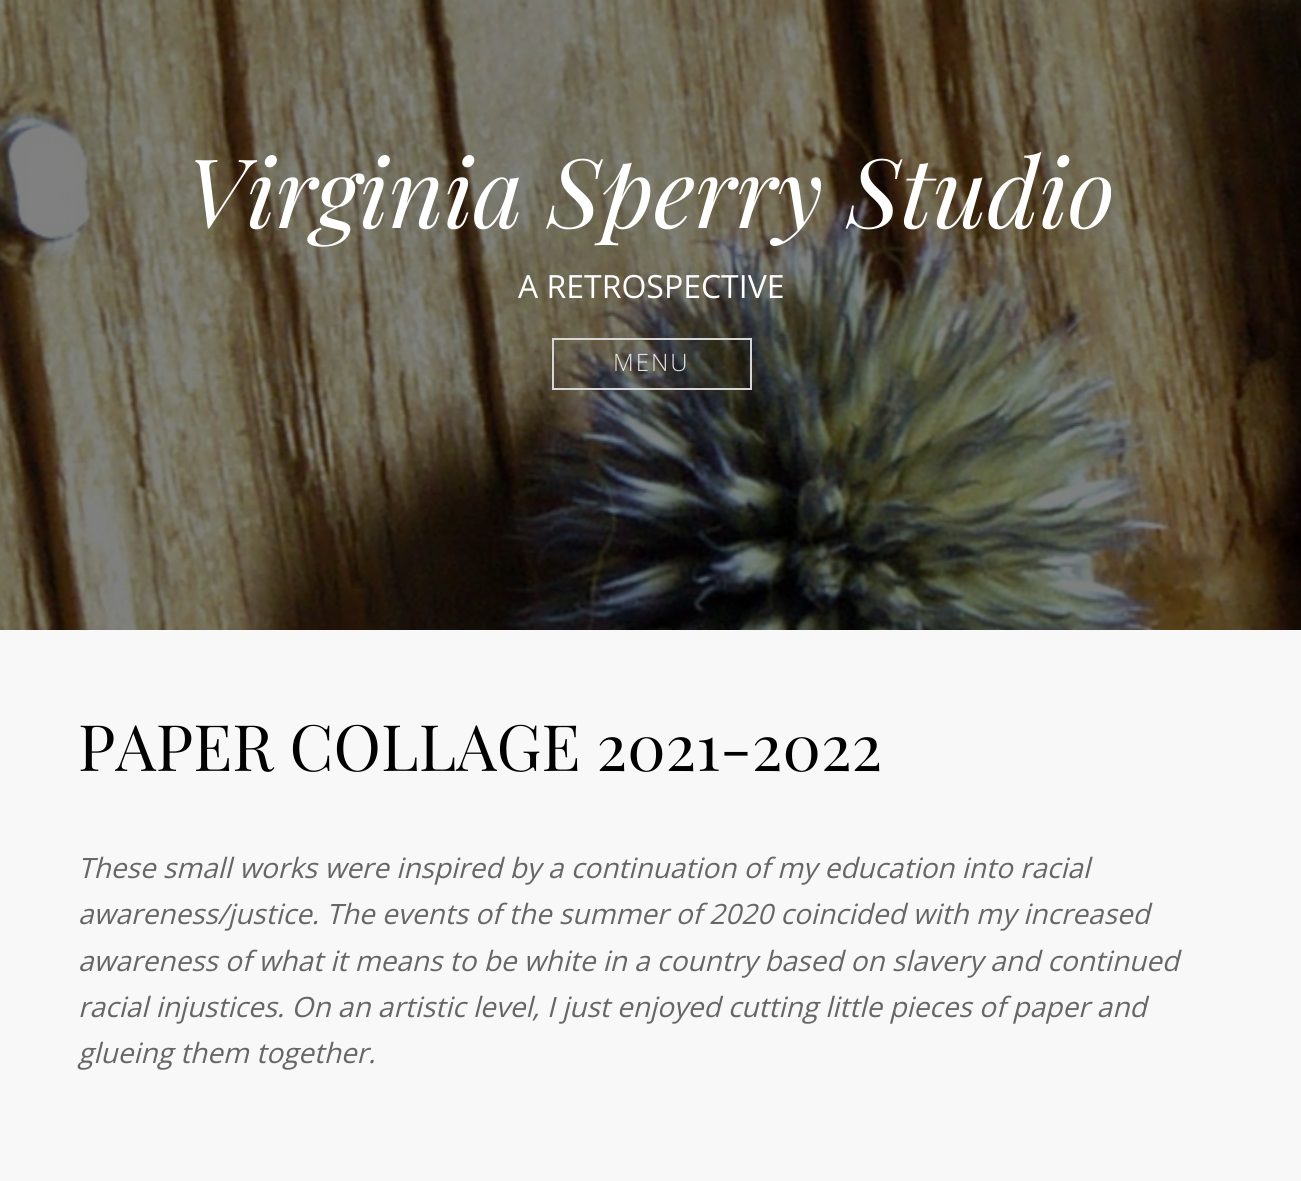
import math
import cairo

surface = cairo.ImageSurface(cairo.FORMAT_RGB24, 1301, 1181)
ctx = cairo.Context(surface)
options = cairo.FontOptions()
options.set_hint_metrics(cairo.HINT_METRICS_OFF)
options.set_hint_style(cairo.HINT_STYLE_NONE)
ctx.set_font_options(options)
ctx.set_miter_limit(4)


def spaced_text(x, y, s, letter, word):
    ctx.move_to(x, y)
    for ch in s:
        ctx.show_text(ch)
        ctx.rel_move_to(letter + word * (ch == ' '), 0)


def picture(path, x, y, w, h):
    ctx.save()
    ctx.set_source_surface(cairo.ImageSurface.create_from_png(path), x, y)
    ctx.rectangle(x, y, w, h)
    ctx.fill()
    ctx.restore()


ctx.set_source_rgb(0.969, 0.969, 0.969)
ctx.paint()
picture("img1.png", 0, 0, 1301, 630)
ctx.select_font_face("Playfair Display", cairo.FONT_SLANT_ITALIC)
ctx.set_font_size(96)
ctx.set_source_rgb(1, 1, 1)
ctx.move_to(186, 228)
ctx.show_text("Virginia Sperry Studio")
ctx.select_font_face("Open Sans")
ctx.set_font_size(32)
ctx.move_to(518, 298)
ctx.show_text("A RETROSPECTIVE")
ctx.rectangle(553, 339, 198, 50)
ctx.set_source_rgb(0.843, 0.843, 0.843)
ctx.stroke()
ctx.select_font_face("Open Sans Light")
ctx.set_font_size(24)
ctx.set_source_rgb(0.906, 0.906, 0.906)
spaced_text(613, 371, "MENU", 2, 0)
ctx.select_font_face("Playfair Display")
ctx.set_font_size(64)
ctx.set_source_rgb(0, 0, 0)
ctx.move_to(78, 771)
ctx.show_text("PAPER COLLAGE 2021-2022")
ctx.select_font_face("Open Sans", cairo.FONT_SLANT_ITALIC)
ctx.set_font_size(28)
ctx.set_source_rgb(0.4, 0.4, 0.4)
ctx.move_to(78, 878)
ctx.show_text("These small works were inspired by a continuation of my education into racial")
ctx.move_to(78, 924)
ctx.show_text("awareness/justice. The events of the summer of 2020 coincided with my increased")
ctx.move_to(78, 971)
ctx.show_text("awareness of what it means to be white in a country based on slavery and continued")
ctx.move_to(78, 1017)
ctx.show_text("racial injustices. On an artistic level, I just enjoyed cutting little pieces of paper and")
ctx.move_to(78, 1063)
ctx.show_text("glueing them together.")
surface.write_to_png("page.png")
